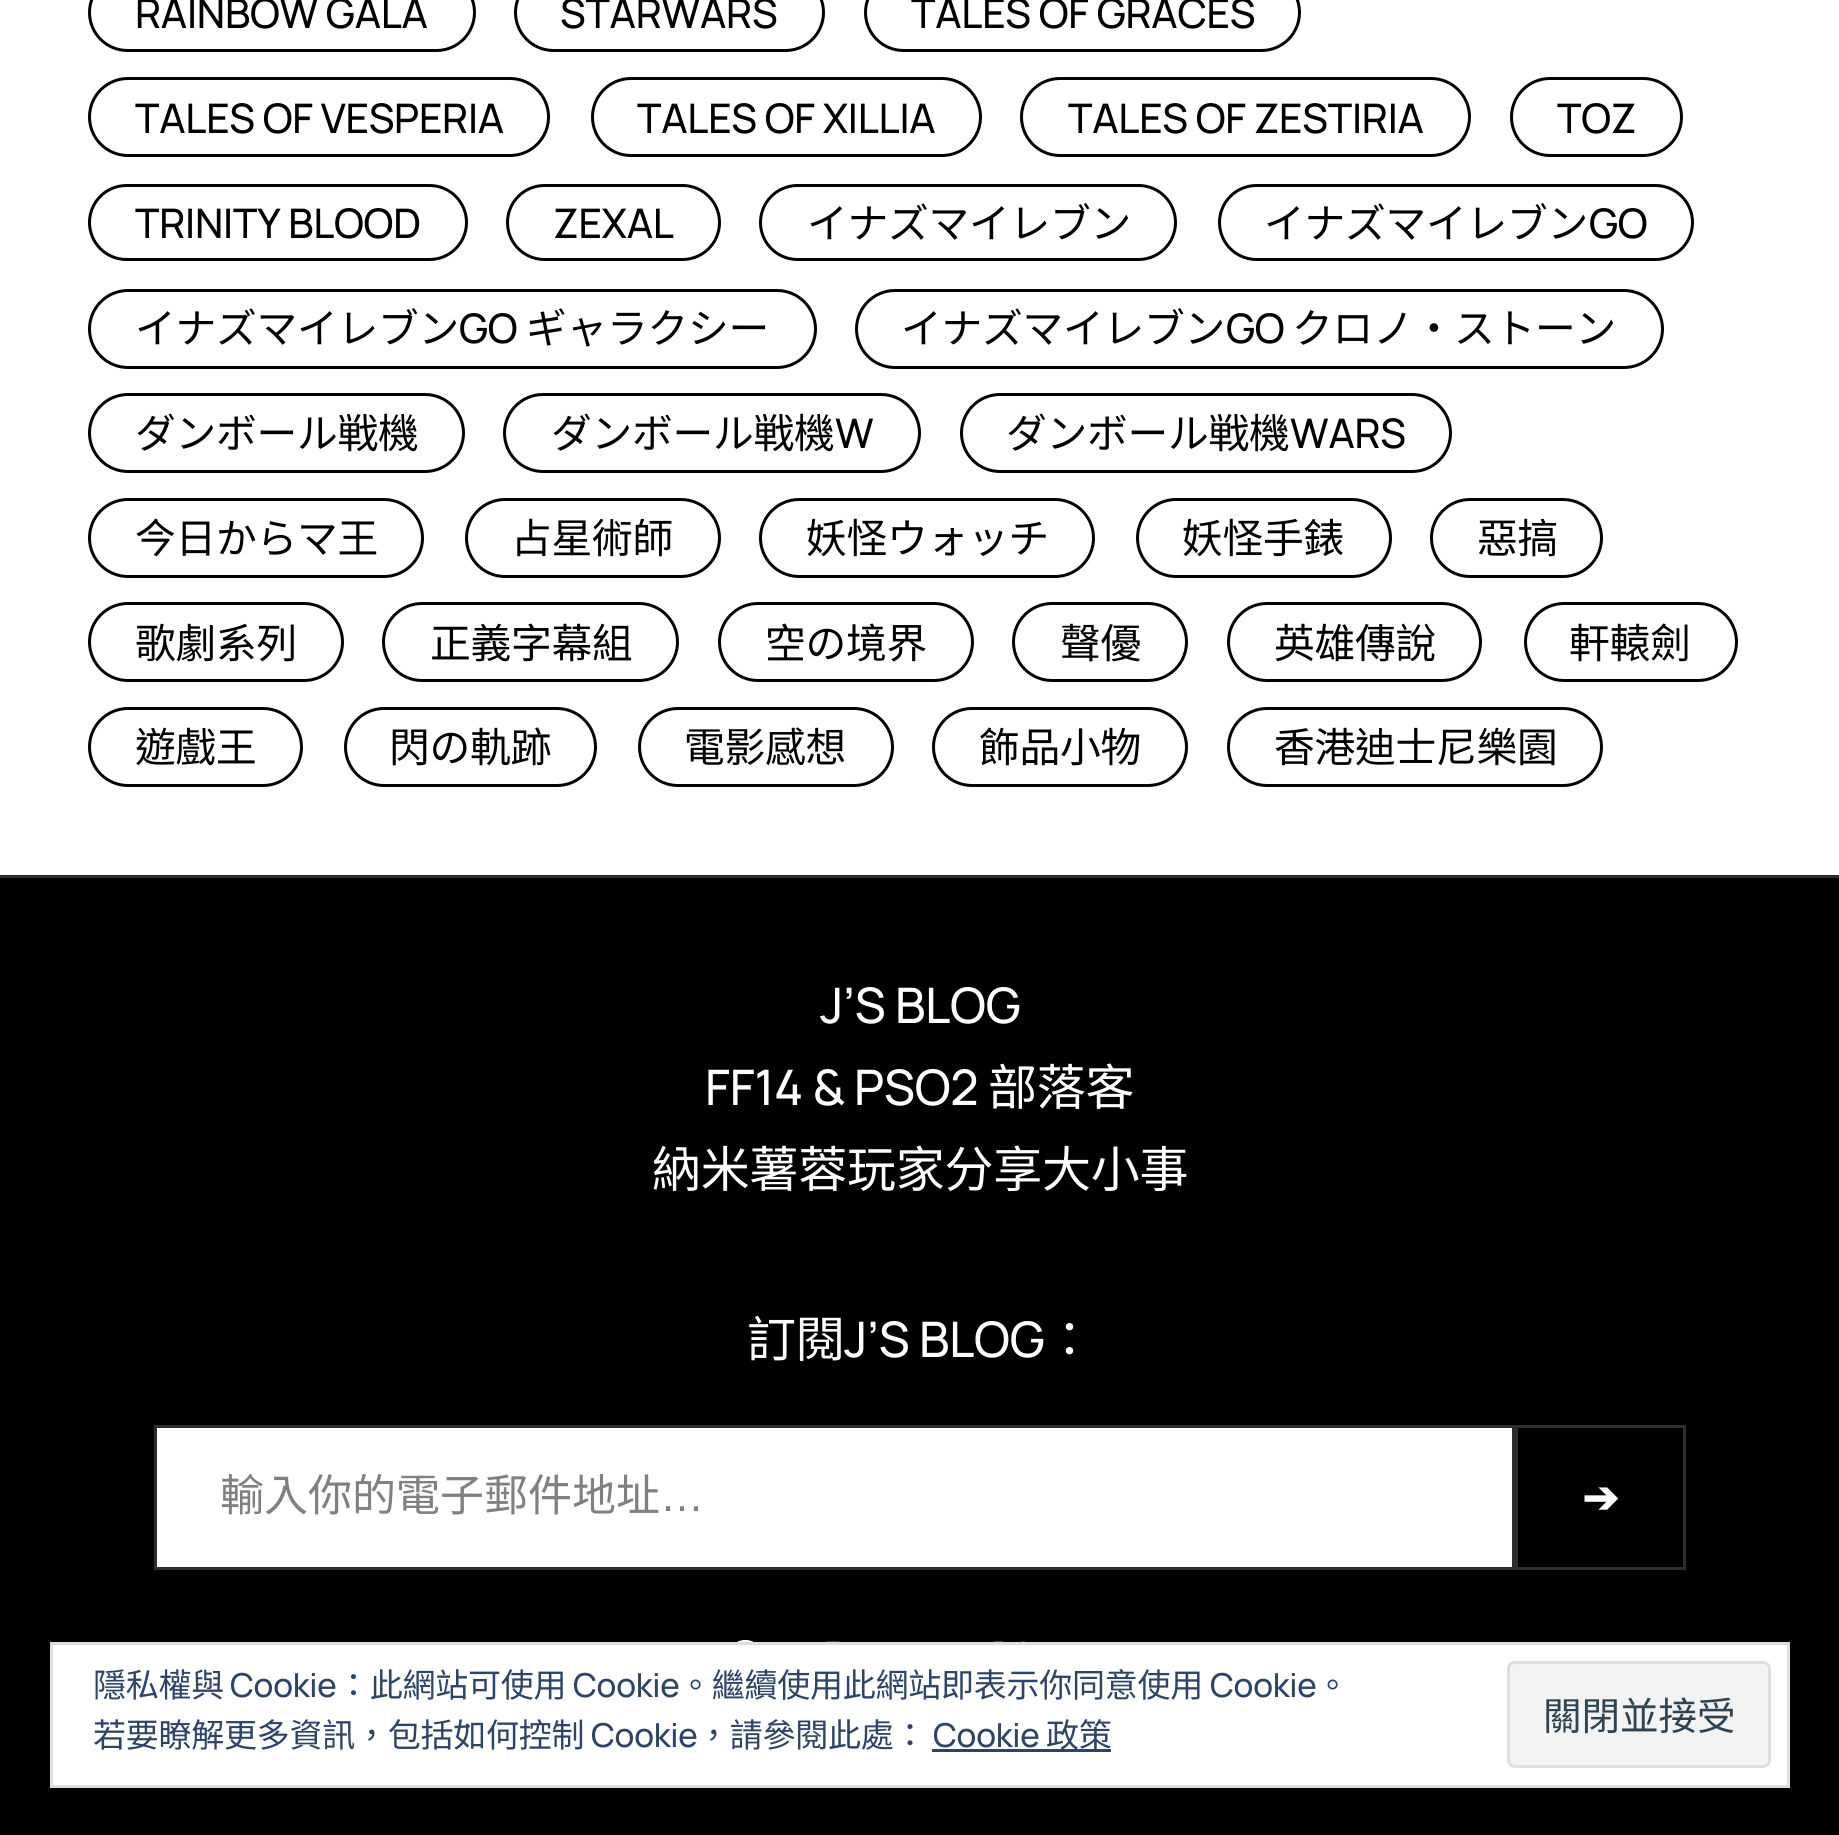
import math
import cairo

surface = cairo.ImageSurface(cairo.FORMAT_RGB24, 1839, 1835)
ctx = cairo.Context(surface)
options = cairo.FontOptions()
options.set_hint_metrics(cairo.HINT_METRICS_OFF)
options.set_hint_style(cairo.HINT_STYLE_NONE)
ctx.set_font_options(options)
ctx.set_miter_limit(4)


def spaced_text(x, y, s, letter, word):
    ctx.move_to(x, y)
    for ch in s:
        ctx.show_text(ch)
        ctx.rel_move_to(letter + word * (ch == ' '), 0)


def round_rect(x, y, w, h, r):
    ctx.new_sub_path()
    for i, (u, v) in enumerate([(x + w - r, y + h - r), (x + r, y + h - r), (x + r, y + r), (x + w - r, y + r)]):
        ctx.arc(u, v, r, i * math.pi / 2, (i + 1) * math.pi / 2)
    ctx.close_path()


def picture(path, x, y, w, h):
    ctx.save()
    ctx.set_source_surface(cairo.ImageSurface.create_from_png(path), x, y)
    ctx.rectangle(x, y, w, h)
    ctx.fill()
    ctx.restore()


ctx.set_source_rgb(1, 1, 1)
ctx.paint()
round_rect(89.5, -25.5, 385, 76, 38)
ctx.set_source_rgb(0, 0, 0)
ctx.set_line_width(3)
ctx.stroke()
ctx.select_font_face("Manrope Medium")
ctx.set_font_size(40.75)
spaced_text(135, 28, "RAINBOW GALA", -0.25, 0)
round_rect(515.5, -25.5, 308, 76, 38)
ctx.stroke()
spaced_text(560, 28, "STARWARS", -0.25, 0)
round_rect(865.5, -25.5, 434, 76, 38)
ctx.stroke()
spaced_text(911, 28, "TALES OF GRACES", -0.25, 0)
round_rect(89.5, 78.5, 459, 77, 38.5)
ctx.stroke()
spaced_text(135, 133, "TALES OF VESPERIA", -0.25, 0)
round_rect(592.5, 78.5, 388, 77, 38.5)
ctx.stroke()
spaced_text(637, 133, "TALES OF XILLIA", -0.25, 0)
round_rect(1021.5, 78.5, 448, 77, 38.5)
ctx.stroke()
spaced_text(1068, 133, "TALES OF ZESTIRIA", -0.25, 0)
round_rect(1511.5, 78.5, 170, 77, 38.5)
ctx.stroke()
spaced_text(1557, 133, "TOZ", -0.25, 0)
round_rect(89.5, 185.5, 377, 74, 37)
ctx.stroke()
spaced_text(135, 238, "TRINITY BLOOD", -0.25, 0)
round_rect(507.5, 185.5, 212, 74, 37)
ctx.stroke()
spaced_text(553, 238, "ZEXAL", -0.25, 0)
round_rect(760.5, 185.5, 415, 74, 37)
ctx.stroke()
ctx.select_font_face("Noto Sans CJK HK")
spaced_text(807, 238, "イナズマイレブン", -0.25, 0)
round_rect(1219.5, 185.5, 473, 74, 37)
ctx.stroke()
spaced_text(1264, 238, "イナズマイレブン", -0.25, 0)
ctx.select_font_face("Manrope Medium")
spaced_text(1589, 238, "GO", -0.25, 0)
round_rect(89.5, 290.5, 726, 77, 38.5)
ctx.stroke()
ctx.select_font_face("Noto Sans CJK HK")
spaced_text(135, 343, "イナズマイレブン", -0.25, 0)
ctx.select_font_face("Manrope Medium")
spaced_text(459, 343, "GO", -0.25, 0)
ctx.select_font_face("Noto Sans CJK HK")
spaced_text(526, 343, "ギャラクシー", -0.25, 0)
round_rect(856.5, 290.5, 806, 77, 38.5)
ctx.stroke()
spaced_text(901, 343, "イナズマイレブン", -0.25, 0)
ctx.select_font_face("Manrope Medium")
spaced_text(1226, 343, "GO", -0.25, 0)
ctx.select_font_face("Noto Sans CJK HK")
spaced_text(1292, 343, "クロノ・ストーン", -0.25, 0)
round_rect(89.5, 394.5, 374, 77, 38.5)
ctx.stroke()
spaced_text(135, 448, "ダンボール戦機", -0.25, 0)
round_rect(504.5, 394.5, 415, 77, 38.5)
ctx.stroke()
spaced_text(551, 448, "ダンボール戦機", -0.25, 0)
ctx.select_font_face("Manrope Medium")
spaced_text(835, 448, "W", -0.25, 0)
round_rect(961.5, 394.5, 489, 77, 38.5)
ctx.stroke()
ctx.select_font_face("Noto Sans CJK HK")
spaced_text(1006, 448, "ダンボール戦機", -0.25, 0)
ctx.select_font_face("Manrope Medium")
spaced_text(1290, 448, "WARS", -0.25, 0)
round_rect(89.5, 499.5, 333, 77, 38.5)
ctx.stroke()
ctx.select_font_face("Noto Sans CJK HK")
spaced_text(135, 553, "今日からマ王", -0.25, 0)
round_rect(466.5, 499.5, 253, 77, 38.5)
ctx.stroke()
spaced_text(511, 553, "占星術師", -0.25, 0)
round_rect(760.5, 499.5, 333, 77, 38.5)
ctx.stroke()
spaced_text(806, 553, "妖怪ウォッチ", -0.25, 0)
round_rect(1137.5, 499.5, 253, 77, 38.5)
ctx.stroke()
spaced_text(1182, 553, "妖怪手錶", -0.25, 0)
round_rect(1431.5, 499.5, 170, 77, 38.5)
ctx.stroke()
spaced_text(1477, 553, "惡搞", -0.25, 0)
round_rect(89.5, 603.5, 253, 77, 38.5)
ctx.stroke()
spaced_text(135, 658, "歌劇系列", -0.25, 0)
round_rect(383.5, 603.5, 294, 77, 38.5)
ctx.stroke()
spaced_text(430, 658, "正義字幕組", -0.25, 0)
round_rect(719.5, 603.5, 253, 77, 38.5)
ctx.stroke()
spaced_text(765, 658, "空の境界", -0.25, 0)
round_rect(1013.5, 603.5, 173, 77, 38.5)
ctx.stroke()
spaced_text(1060, 658, "聲優", -0.25, 0)
round_rect(1228.5, 603.5, 252, 77, 38.5)
ctx.stroke()
spaced_text(1274, 658, "英雄傳說", -0.25, 0)
round_rect(1525.5, 603.5, 211, 77, 38.5)
ctx.stroke()
spaced_text(1569, 658, "軒轅劍", -0.25, 0)
round_rect(89.5, 708.5, 212, 77, 38.5)
ctx.stroke()
spaced_text(135, 762, "遊戲王", -0.25, 0)
round_rect(345.5, 708.5, 250, 77, 38.5)
ctx.stroke()
spaced_text(389, 762, "閃の軌跡", -0.25, 0)
round_rect(639.5, 708.5, 253, 77, 38.5)
ctx.stroke()
spaced_text(684, 762, "電影感想", -0.25, 0)
round_rect(933.5, 708.5, 253, 77, 38.5)
ctx.stroke()
spaced_text(979, 762, "飾品小物", -0.25, 0)
round_rect(1228.5, 708.5, 373, 77, 38.5)
ctx.stroke()
spaced_text(1274, 762, "香港迪士尼樂園", -0.25, 0)
ctx.rectangle(0, 878, 1839, 957)
ctx.fill()
ctx.set_source_rgb(0.18, 0.18, 0.18)
ctx.rectangle(0, 875, 1839, 3)
ctx.fill()
ctx.select_font_face("Manrope Medium")
ctx.set_font_size(49)
ctx.set_source_rgb(1, 1, 1)
spaced_text(820, 1023, "J’S BLOG", -0.25, 0)
spaced_text(705, 1105, "FF14 & PSO2", -0.25, 0)
ctx.select_font_face("Noto Sans CJK HK")
spaced_text(988, 1105, "部落客", -0.25, 0)
spaced_text(652, 1187, "納米薯蓉玩家分享大小事", -0.25, 0)
spaced_text(747, 1357, "訂閱", -0.25, 0)
ctx.select_font_face("Manrope Medium")
spaced_text(844, 1357, "J’S BLOG", -0.25, 0)
ctx.select_font_face("Noto Sans CJK HK")
spaced_text(1045, 1357, "：", -0.25, 0)
ctx.rectangle(155.5, 1426.5, 1358, 142)
ctx.fill_preserve()
ctx.set_source_rgb(0.18, 0.18, 0.18)
ctx.stroke()
ctx.set_font_size(44)
ctx.set_source_rgb(0.502, 0.502, 0.502)
ctx.move_to(220, 1511)
ctx.show_text("輸入你的電子郵件地址")
ctx.select_font_face("Liberation Sans")
ctx.move_to(660, 1511)
ctx.show_text("…")
ctx.rectangle(1516.5, 1426.5, 168, 142)
ctx.set_source_rgb(0.18, 0.18, 0.18)
ctx.stroke()
ctx.select_font_face("DejaVu Sans", cairo.FONT_SLANT_NORMAL, cairo.FONT_WEIGHT_BOLD)
ctx.set_source_rgb(1, 1, 1)
ctx.move_to(1582, 1513)
ctx.show_text("➔")
picture("img1.png", 737, 1639, 17, 3)
picture("img2.png", 825, 1641, 16, 1)
picture("img3.png", 993, 1641, 32, 1)
ctx.rectangle(51.5, 1643.5, 1737, 143)
ctx.fill_preserve()
ctx.set_source_rgb(0.871, 0.871, 0.871)
ctx.stroke()
ctx.select_font_face("Noto Sans CJK HK")
ctx.set_font_size(33)
ctx.set_source_rgb(0.18, 0.267, 0.404)
spaced_text(93, 1697, "隱私權與", -0.25, 0)
ctx.select_font_face("Manrope Medium")
spaced_text(230, 1697, "Cookie", -0.25, 0)
ctx.select_font_face("Noto Sans CJK HK")
spaced_text(337, 1697, "：此網站可使用", -0.25, 0)
ctx.select_font_face("Manrope Medium")
spaced_text(573, 1697, "Cookie", -0.25, 0)
ctx.select_font_face("Noto Sans CJK HK")
spaced_text(679, 1697, "。繼續使用此網站即表示你同意使用", -0.25, 0)
ctx.select_font_face("Manrope Medium")
spaced_text(1210, 1697, "Cookie", -0.25, 0)
ctx.select_font_face("Noto Sans CJK HK")
spaced_text(1316, 1697, "。", -0.25, 0)
spaced_text(93, 1747, "若要瞭解更多資訊，包括如何控制", -0.25, 0)
ctx.select_font_face("Manrope Medium")
spaced_text(591, 1747, "Cookie", -0.25, 0)
ctx.select_font_face("Noto Sans CJK HK")
spaced_text(697, 1747, "，請參閱此處：", -0.25, 0)
ctx.select_font_face("Manrope Medium")
spaced_text(933, 1747, "Cookie", -0.25, 0)
ctx.rectangle(932, 1749, 179, 3)
ctx.fill()
ctx.select_font_face("Noto Sans CJK HK")
spaced_text(1046, 1747, "政策", -0.25, 0)
ctx.set_source_rgb(0.953, 0.953, 0.953)
round_rect(1508.5, 1662.5, 261, 104, 6.5)
ctx.fill_preserve()
ctx.set_source_rgb(0.871, 0.871, 0.871)
ctx.stroke()
ctx.set_font_size(38.5)
ctx.set_source_rgb(0.18, 0.267, 0.325)
ctx.move_to(1543, 1730)
ctx.show_text("關閉並接受")
surface.write_to_png("page.png")
